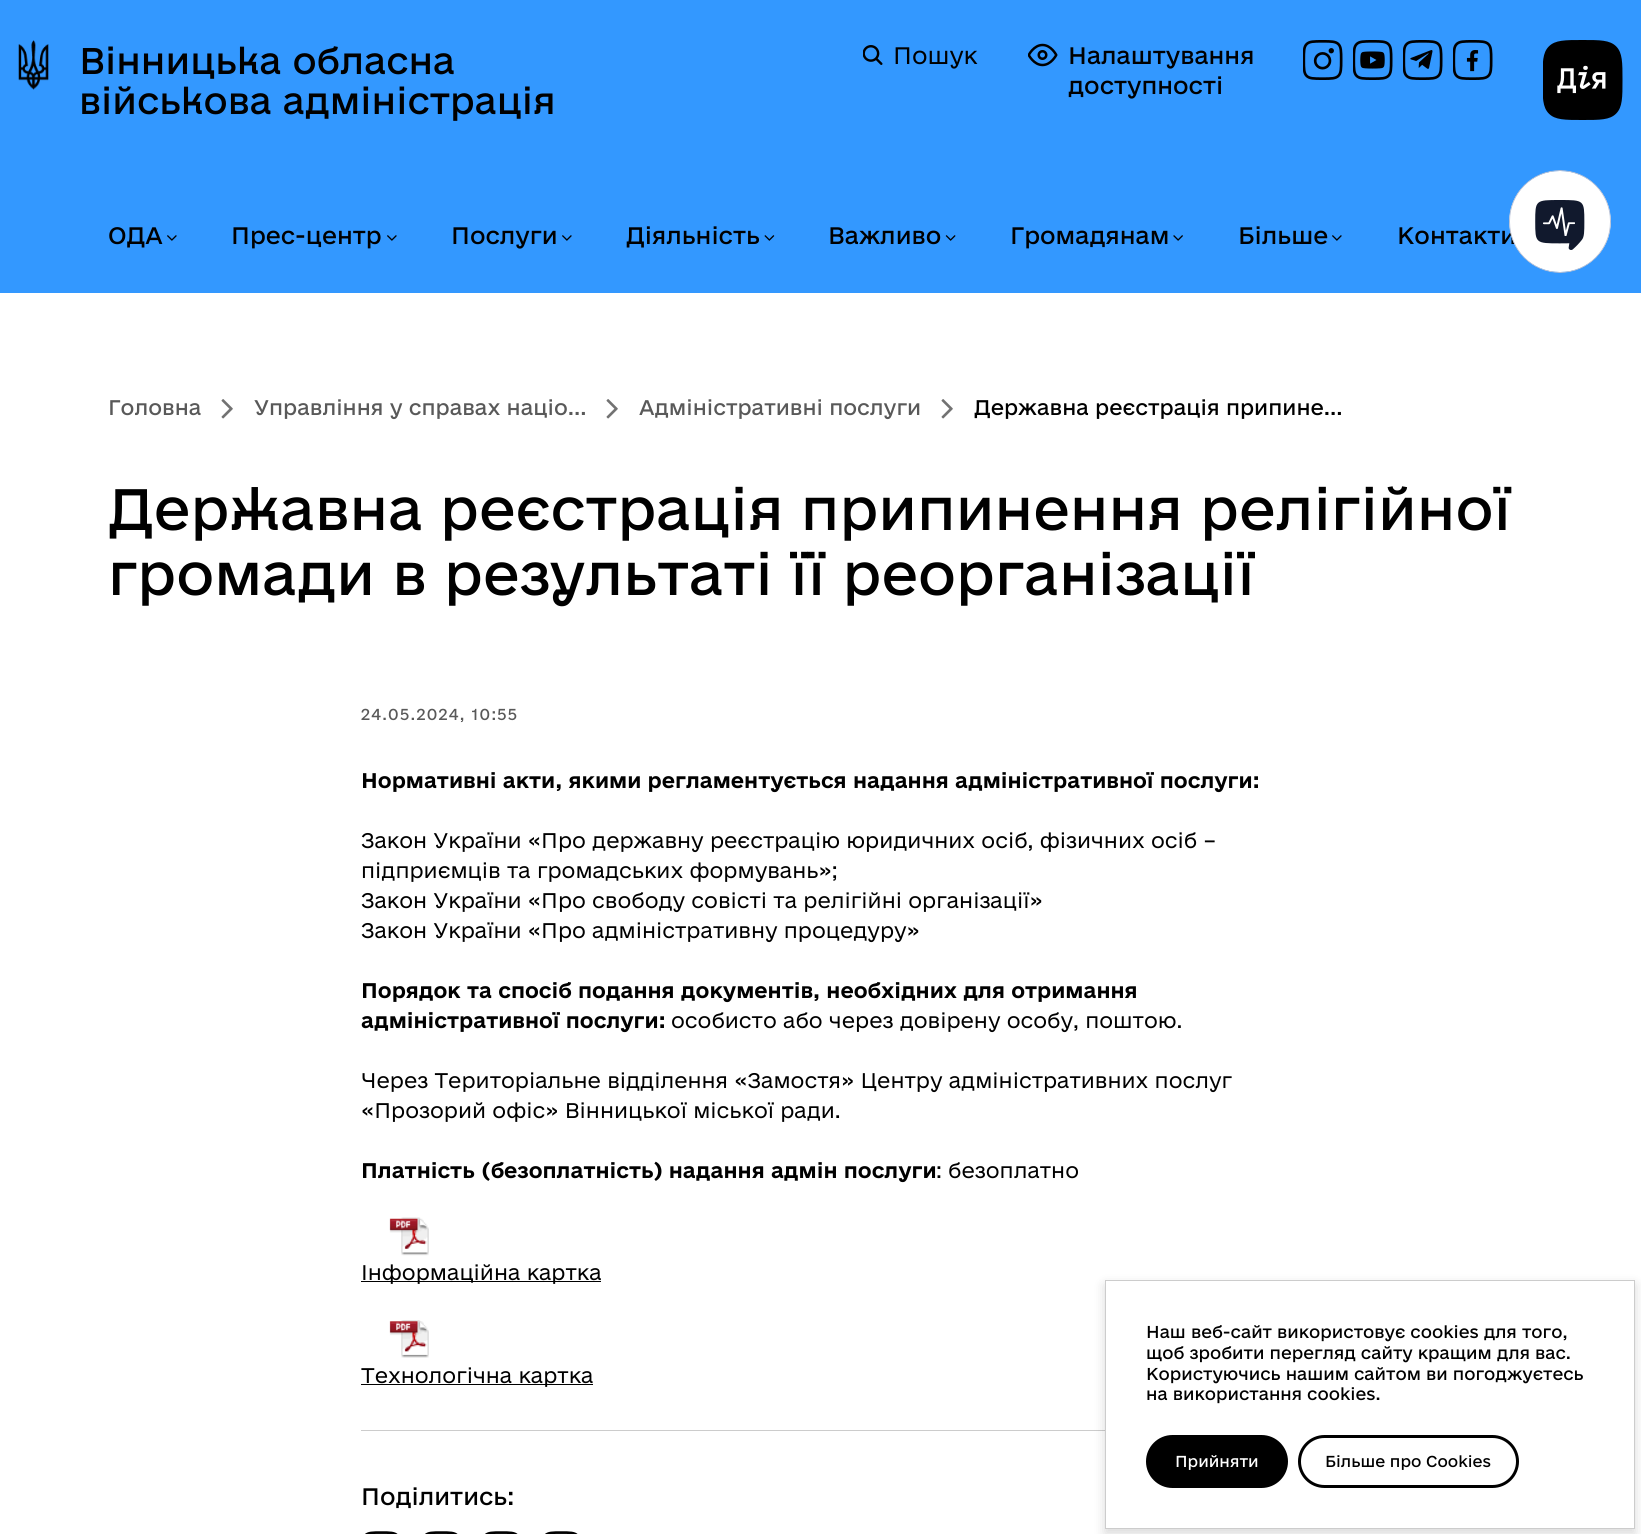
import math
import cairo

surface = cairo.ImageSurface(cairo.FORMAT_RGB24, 1641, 1534)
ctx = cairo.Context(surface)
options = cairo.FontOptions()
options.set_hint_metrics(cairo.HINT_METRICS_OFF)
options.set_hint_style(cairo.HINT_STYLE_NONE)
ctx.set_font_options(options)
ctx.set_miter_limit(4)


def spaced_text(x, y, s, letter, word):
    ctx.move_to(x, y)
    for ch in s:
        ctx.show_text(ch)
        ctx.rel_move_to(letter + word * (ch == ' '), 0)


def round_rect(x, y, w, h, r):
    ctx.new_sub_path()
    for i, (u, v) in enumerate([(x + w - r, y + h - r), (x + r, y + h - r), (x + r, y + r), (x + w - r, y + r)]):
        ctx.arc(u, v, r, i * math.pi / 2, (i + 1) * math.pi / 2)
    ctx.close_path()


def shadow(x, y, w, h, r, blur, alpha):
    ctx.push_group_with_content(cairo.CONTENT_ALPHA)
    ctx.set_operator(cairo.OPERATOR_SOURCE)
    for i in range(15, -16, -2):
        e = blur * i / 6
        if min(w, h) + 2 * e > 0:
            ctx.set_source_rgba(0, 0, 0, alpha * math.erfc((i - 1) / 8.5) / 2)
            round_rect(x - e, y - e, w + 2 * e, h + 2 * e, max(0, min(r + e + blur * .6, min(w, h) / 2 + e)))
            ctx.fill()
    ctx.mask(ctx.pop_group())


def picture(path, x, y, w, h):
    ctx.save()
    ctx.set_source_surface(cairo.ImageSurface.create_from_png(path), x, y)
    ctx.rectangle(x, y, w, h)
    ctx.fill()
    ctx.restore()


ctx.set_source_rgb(1, 1, 1)
ctx.paint()
ctx.set_source_rgb(0.2, 0.596, 1)
ctx.rectangle(0, 0, 1641, 293)
ctx.fill()
picture("img1.png", 18, 40, 31, 50)
ctx.select_font_face("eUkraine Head")
ctx.set_font_size(35)
ctx.set_source_rgb(0, 0, 0)
ctx.move_to(79, 74)
ctx.show_text("Вінницька обласна")
ctx.move_to(79, 114)
ctx.show_text("військова адміністрація")
picture("img2.png", 863, 45, 20, 20)
ctx.select_font_face("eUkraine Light")
ctx.set_font_size(22.5)
ctx.move_to(893, 64)
ctx.show_text("Пошук")
picture("img3.png", 1028, 43, 30, 24)
ctx.select_font_face("eUkraine")
ctx.move_to(1068, 64)
ctx.show_text("Налаштування")
ctx.move_to(1068, 94)
ctx.show_text("доступності")
picture("img4.png", 1303, 40, 40, 40)
picture("img5.png", 1353, 40, 40, 40)
picture("img6.png", 1403, 40, 40, 40)
picture("img7.png", 1453, 40, 40, 40)
picture("img8.png", 1543, 40, 80, 80)
ctx.move_to(108, 244)
ctx.show_text("ОДА")
picture("img9.png", 167, 235, 10, 6)
ctx.move_to(231, 244)
ctx.show_text("Прес-центр")
picture("img9.png", 387, 235, 10, 6)
ctx.move_to(451, 244)
ctx.show_text("Послуги")
picture("img9.png", 562, 235, 10, 6)
ctx.move_to(626, 244)
ctx.show_text("Діяльність")
picture("img10.png", 764, 235, 11, 6)
ctx.move_to(828, 244)
ctx.show_text("Важливо")
picture("img11.png", 945, 235, 11, 6)
ctx.move_to(1010, 244)
ctx.show_text("Громадянам")
picture("img12.png", 1173, 235, 10, 6)
ctx.move_to(1238, 244)
ctx.show_text("Більше")
picture("img9.png", 1332, 235, 10, 6)
ctx.move_to(1397, 244)
ctx.show_text("Контакти")
ctx.set_font_size(20)
ctx.set_source_rgb(0.349, 0.349, 0.349)
ctx.move_to(108, 415)
ctx.show_text("Головна")
picture("img13.png", 221, 399, 12, 20)
ctx.move_to(254, 415)
ctx.show_text("Управління у справах націо...")
picture("img13.png", 606, 399, 12, 20)
ctx.move_to(639, 415)
ctx.show_text("Адміністративні послуги")
picture("img13.png", 941, 399, 12, 20)
ctx.set_source_rgb(0, 0, 0)
ctx.move_to(974, 415)
ctx.show_text("Державна реєстрація припине...")
ctx.select_font_face("eUkraine Head")
ctx.set_font_size(55)
ctx.move_to(108, 530)
ctx.show_text("Державна реєстрація припинення релігійної")
ctx.move_to(108, 595)
ctx.show_text("громади в результаті її реорганізації")
ctx.select_font_face("eUkraine")
ctx.set_font_size(15)
ctx.set_source_rgb(0.349, 0.349, 0.349)
spaced_text(361, 720, "24.05.2024, 10:55", 1.25, 0)
ctx.select_font_face("eUkraine", cairo.FONT_SLANT_NORMAL, cairo.FONT_WEIGHT_BOLD)
ctx.set_font_size(20)
ctx.set_source_rgb(0, 0, 0)
ctx.move_to(361, 788)
ctx.show_text("Нормативні акти, якими регламентується надання адміністративної послуги:")
ctx.select_font_face("eUkraine Light")
ctx.move_to(361, 848)
ctx.show_text("Закон України «Про державну реєстрацію юридичних осіб, фізичних осіб –")
ctx.move_to(361, 878)
ctx.show_text("підприємців та громадських формувань»;")
ctx.move_to(361, 908)
ctx.show_text("Закон України «Про свободу совісті та релігійні організації»")
ctx.move_to(361, 938)
ctx.show_text("Закон України «Про адміністративну процедуру»")
ctx.select_font_face("eUkraine", cairo.FONT_SLANT_NORMAL, cairo.FONT_WEIGHT_BOLD)
ctx.move_to(361, 998)
ctx.show_text("Порядок та спосіб подання документів, необхідних для отримання")
ctx.move_to(361, 1028)
ctx.show_text("адміністративної послуги:")
ctx.select_font_face("eUkraine Light")
ctx.move_to(671, 1028)
ctx.show_text("особисто або через довірену особу, поштою.")
ctx.move_to(361, 1088)
ctx.show_text("Через Територіальне відділення «Замостя» Центру адміністративних послуг")
ctx.move_to(361, 1118)
ctx.show_text("«Прозорий офіс» Вінницької міської ради.")
ctx.select_font_face("eUkraine", cairo.FONT_SLANT_NORMAL, cairo.FONT_WEIGHT_BOLD)
ctx.move_to(361, 1178)
ctx.show_text("Платність (безоплатність) надання адмін послуги")
ctx.select_font_face("eUkraine Light")
ctx.move_to(936, 1178)
ctx.show_text(": безоплатно")
picture("img14.png", 389, 1217, 40, 39)
ctx.rectangle(361, 1281, 240, 1)
ctx.fill()
ctx.move_to(361, 1280)
ctx.show_text("Інформаційна картка")
picture("img15.png", 389, 1320, 40, 38)
ctx.rectangle(361, 1384, 232, 1)
ctx.fill()
ctx.move_to(361, 1383)
ctx.show_text("Технологічна картка")
ctx.set_source_rgb(0.8, 0.8, 0.8)
ctx.rectangle(361, 1430, 744, 1)
ctx.fill()
ctx.select_font_face("eUkraine")
ctx.set_font_size(22.5)
ctx.set_source_rgb(0, 0, 0)
ctx.move_to(361, 1505)
ctx.show_text("Поділитись:")
picture("img16.png", 365, 1531, 33, 3)
picture("img16.png", 425, 1531, 33, 3)
picture("img16.png", 485, 1531, 33, 3)
picture("img16.png", 545, 1531, 33, 3)
picture("img17.png", 1509, 170, 102, 103)
ctx.set_source_rgb(0, 0, 0)
shadow(1105, 1285, 530, 249, 0, 6, 0.15)
ctx.set_source_rgb(1, 1, 1)
ctx.rectangle(1105.5, 1280.5, 529, 248)
ctx.fill_preserve()
ctx.set_source_rgb(0.8, 0.8, 0.8)
ctx.set_line_width(1)
ctx.stroke()
ctx.set_font_size(16.25)
ctx.set_source_rgb(0, 0, 0)
ctx.move_to(1146, 1338)
ctx.show_text("Наш веб-сайт використовує cookies для того,")
ctx.move_to(1146, 1359)
ctx.show_text("щоб зробити перегляд сайту кращим для вас.")
ctx.move_to(1146, 1380)
ctx.show_text("Користуючись нашим сайтом ви погоджуєтесь")
ctx.move_to(1146, 1400)
ctx.show_text("на використання cookies.")
round_rect(1148, 1437, 138, 49, 24.5)
ctx.fill_preserve()
ctx.set_line_width(4)
ctx.stroke()
ctx.set_font_size(15)
ctx.set_source_rgb(1, 1, 1)
ctx.move_to(1175, 1467)
ctx.show_text("Прийняти")
round_rect(1299.5, 1436.5, 218, 50, 25)
ctx.set_source_rgb(0, 0, 0)
ctx.set_line_width(3)
ctx.stroke()
ctx.move_to(1325, 1467)
ctx.show_text("Більше про Cookies")
surface.write_to_png("page.png")
